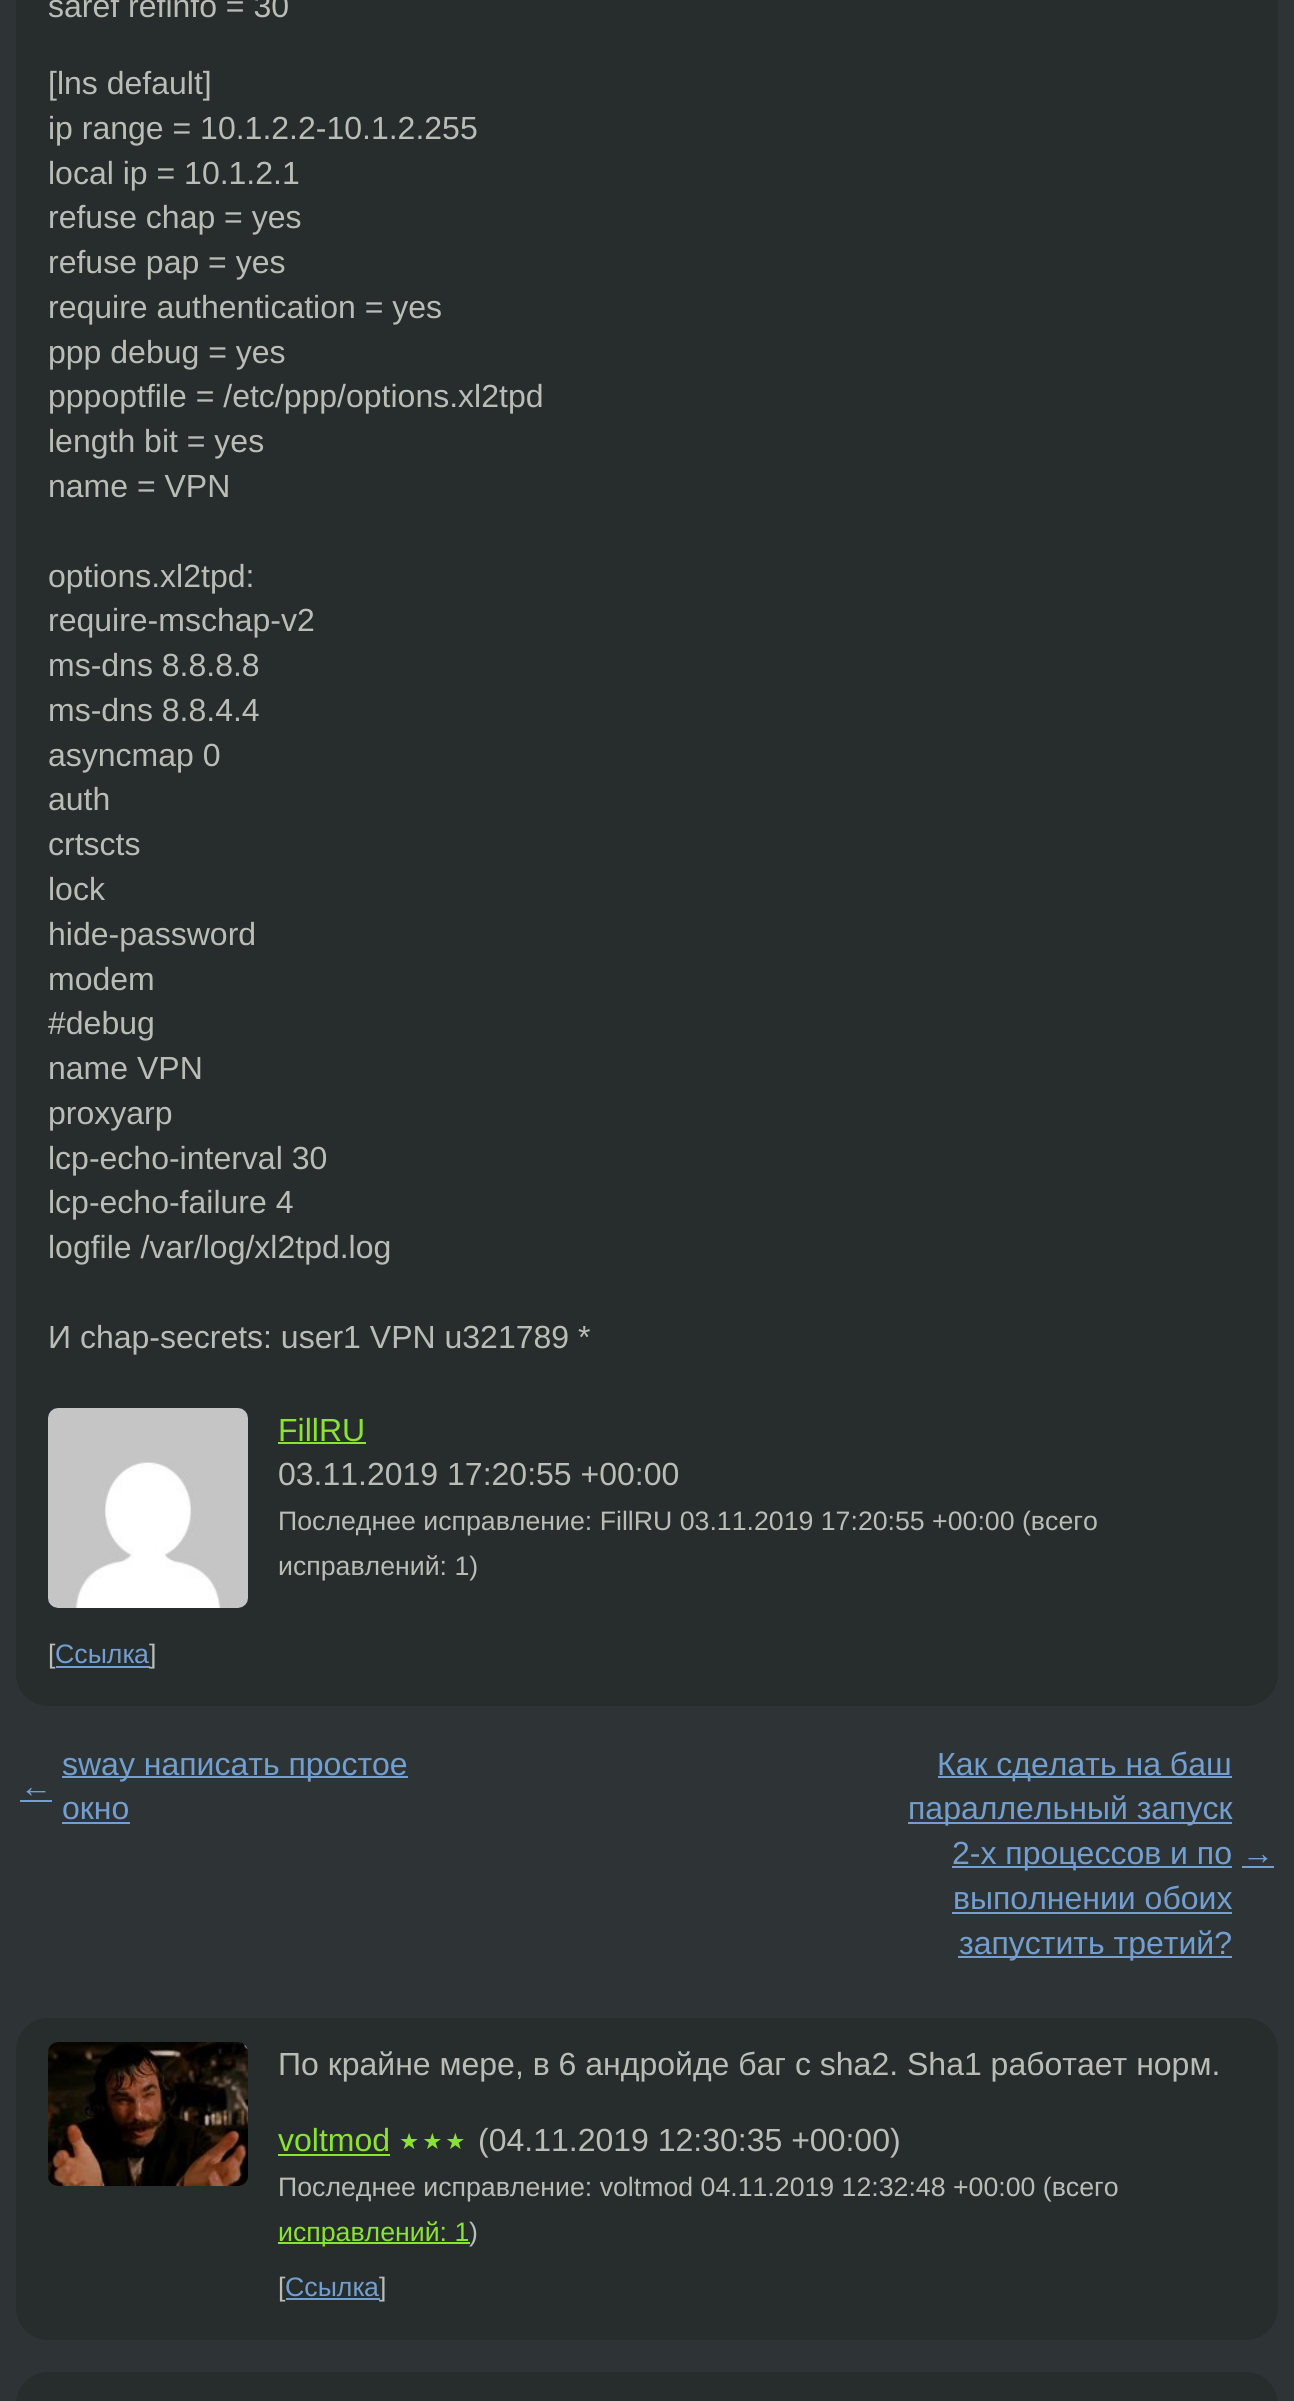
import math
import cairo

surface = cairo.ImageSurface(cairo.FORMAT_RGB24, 1294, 2401)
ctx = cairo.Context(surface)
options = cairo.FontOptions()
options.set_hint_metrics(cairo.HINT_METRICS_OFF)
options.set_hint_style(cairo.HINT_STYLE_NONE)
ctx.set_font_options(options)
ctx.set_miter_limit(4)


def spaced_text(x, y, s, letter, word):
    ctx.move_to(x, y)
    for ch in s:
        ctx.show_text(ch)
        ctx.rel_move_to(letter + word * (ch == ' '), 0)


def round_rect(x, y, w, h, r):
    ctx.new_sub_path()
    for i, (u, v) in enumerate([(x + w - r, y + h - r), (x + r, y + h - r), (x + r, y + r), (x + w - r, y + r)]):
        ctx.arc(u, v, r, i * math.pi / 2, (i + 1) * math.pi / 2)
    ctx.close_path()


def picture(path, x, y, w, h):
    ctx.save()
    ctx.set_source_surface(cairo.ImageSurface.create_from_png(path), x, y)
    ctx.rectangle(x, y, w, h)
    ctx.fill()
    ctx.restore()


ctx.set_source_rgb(0.18, 0.204, 0.212)
ctx.paint()
ctx.set_source_rgb(0.153, 0.173, 0.176)
round_rect(16, -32, 1262, 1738, 32)
ctx.fill()
ctx.select_font_face("Liberation Sans")
ctx.set_font_size(32)
ctx.set_source_rgb(0.729, 0.741, 0.714)
ctx.move_to(48, 17)
ctx.show_text("saref refinfo = 30")
ctx.move_to(48, 94)
ctx.show_text("[lns default]")
ctx.move_to(48, 139)
ctx.show_text("ip range = 10.1.2.2-10.1.2.255")
ctx.move_to(48, 184)
ctx.show_text("local ip = 10.1.2.1")
ctx.move_to(48, 228)
ctx.show_text("refuse chap = yes")
ctx.move_to(48, 273)
ctx.show_text("refuse pap = yes")
ctx.move_to(48, 318)
ctx.show_text("require authentication = yes")
ctx.move_to(48, 363)
ctx.show_text("ppp debug = yes")
ctx.move_to(48, 407)
ctx.show_text("pppoptfile = /etc/ppp/options.xl2tpd")
ctx.move_to(48, 452)
ctx.show_text("length bit = yes")
ctx.move_to(48, 497)
ctx.show_text("name = VPN")
ctx.move_to(48, 587)
ctx.show_text("options.xl2tpd:")
ctx.move_to(48, 631)
ctx.show_text("require-mschap-v2")
ctx.move_to(48, 676)
ctx.show_text("ms-dns 8.8.8.8")
ctx.move_to(48, 721)
ctx.show_text("ms-dns 8.8.4.4")
ctx.move_to(48, 766)
ctx.show_text("asyncmap 0")
ctx.move_to(48, 810)
ctx.show_text("auth")
ctx.move_to(48, 855)
ctx.show_text("crtscts")
ctx.move_to(48, 900)
ctx.show_text("lock")
ctx.move_to(48, 945)
ctx.show_text("hide-password")
ctx.move_to(48, 990)
ctx.show_text("modem")
ctx.move_to(48, 1034)
ctx.show_text("#debug")
ctx.move_to(48, 1079)
ctx.show_text("name VPN")
ctx.move_to(48, 1124)
ctx.show_text("proxyarp")
ctx.move_to(48, 1169)
ctx.show_text("lcp-echo-interval 30")
ctx.move_to(48, 1213)
ctx.show_text("lcp-echo-failure 4")
ctx.move_to(48, 1258)
ctx.show_text("logfile /var/log/xl2tpd.log")
ctx.move_to(48, 1348)
ctx.show_text("И chap-secrets: user1 VPN u321789 *")
picture("img1.png", 48, 1408, 200, 200)
ctx.set_source_rgb(0.541, 0.886, 0.204)
ctx.move_to(278, 1441)
ctx.show_text("FillRU")
ctx.rectangle(278, 1442, 88, 2)
ctx.fill()
ctx.set_source_rgb(0.729, 0.741, 0.714)
ctx.move_to(278, 1485)
ctx.show_text("03.11.2019 17:20:55 +00:00")
ctx.set_font_size(26.7)
ctx.move_to(278, 1530)
ctx.show_text("Последнее исправление: FillRU 03.11.2019 17:20:55 +00:00 (всего")
ctx.move_to(278, 1575)
ctx.show_text("исправлений: 1)")
ctx.move_to(48, 1663)
ctx.show_text("[")
ctx.set_source_rgb(0.447, 0.624, 0.812)
ctx.rectangle(56, 1666, 94, 2)
ctx.fill()
ctx.move_to(55, 1663)
ctx.show_text("Ссылка")
ctx.set_source_rgb(0.729, 0.741, 0.714)
ctx.move_to(149, 1663)
ctx.show_text("]")
ctx.set_font_size(32)
ctx.set_source_rgb(0.447, 0.624, 0.812)
ctx.move_to(20, 1797)
ctx.show_text("←")
ctx.rectangle(20, 1800, 32, 2)
ctx.fill()
ctx.rectangle(62, 1776, 346, 2)
ctx.fill()
ctx.move_to(62, 1775)
ctx.show_text("sway написать простое")
ctx.move_to(62, 1819)
ctx.show_text("окно")
ctx.rectangle(62, 1822, 68, 2)
ctx.fill()
ctx.rectangle(938, 1776, 294, 2)
ctx.fill()
ctx.move_to(937, 1775)
ctx.show_text("Как сделать на баш")
ctx.rectangle(908, 1822, 324, 2)
ctx.fill()
ctx.move_to(908, 1819)
ctx.show_text("параллельный запуск")
ctx.rectangle(952, 1866, 280, 2)
ctx.fill()
ctx.move_to(952, 1864)
ctx.show_text("2-х процессов и по")
ctx.move_to(953, 1909)
ctx.show_text("выполнении обоих")
ctx.rectangle(952, 1912, 280, 2)
ctx.fill()
ctx.rectangle(958, 1956, 274, 2)
ctx.fill()
ctx.move_to(959, 1954)
ctx.show_text("запустить третий?")
ctx.move_to(1242, 1864)
ctx.show_text("→")
ctx.rectangle(1242, 1866, 32, 2)
ctx.fill()
ctx.set_source_rgb(0.153, 0.173, 0.176)
round_rect(16, 2018, 1262, 322, 32)
ctx.fill()
picture("img2.png", 48, 2042, 200, 144)
ctx.set_source_rgb(0.729, 0.741, 0.714)
ctx.move_to(278, 2075)
ctx.show_text("По крайне мере, в 6 андройде баг с sha2. Sha1 работает норм.")
ctx.set_source_rgb(0.541, 0.886, 0.204)
ctx.move_to(278, 2151)
ctx.show_text("voltmod")
ctx.rectangle(278, 2154, 112, 2)
ctx.fill()
ctx.select_font_face("DejaVu Sans")
ctx.set_font_size(22.5)
spaced_text(399, 2149, "★★★", 3, 0)
ctx.select_font_face("Liberation Sans")
ctx.set_font_size(32)
ctx.set_source_rgb(0.729, 0.741, 0.714)
ctx.move_to(478, 2151)
ctx.show_text("(04.11.2019 12:30:35 +00:00)")
ctx.set_font_size(26.7)
ctx.move_to(278, 2196)
ctx.show_text("Последнее исправление: voltmod 04.11.2019 12:32:48 +00:00 (всего")
ctx.set_source_rgb(0.541, 0.886, 0.204)
ctx.rectangle(278, 2242, 192, 2)
ctx.fill()
ctx.move_to(278, 2241)
ctx.show_text("исправлений: 1")
ctx.set_source_rgb(0.729, 0.741, 0.714)
ctx.move_to(469, 2241)
ctx.show_text(")")
ctx.move_to(278, 2296)
ctx.show_text("[")
ctx.set_source_rgb(0.447, 0.624, 0.812)
ctx.rectangle(286, 2298, 94, 2)
ctx.fill()
ctx.move_to(285, 2296)
ctx.show_text("Ссылка")
ctx.set_source_rgb(0.729, 0.741, 0.714)
ctx.move_to(379, 2296)
ctx.show_text("]")
ctx.set_source_rgb(0.153, 0.173, 0.176)
round_rect(16, 2372, 1262, 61, 32)
ctx.fill()
surface.write_to_png("page.png")
